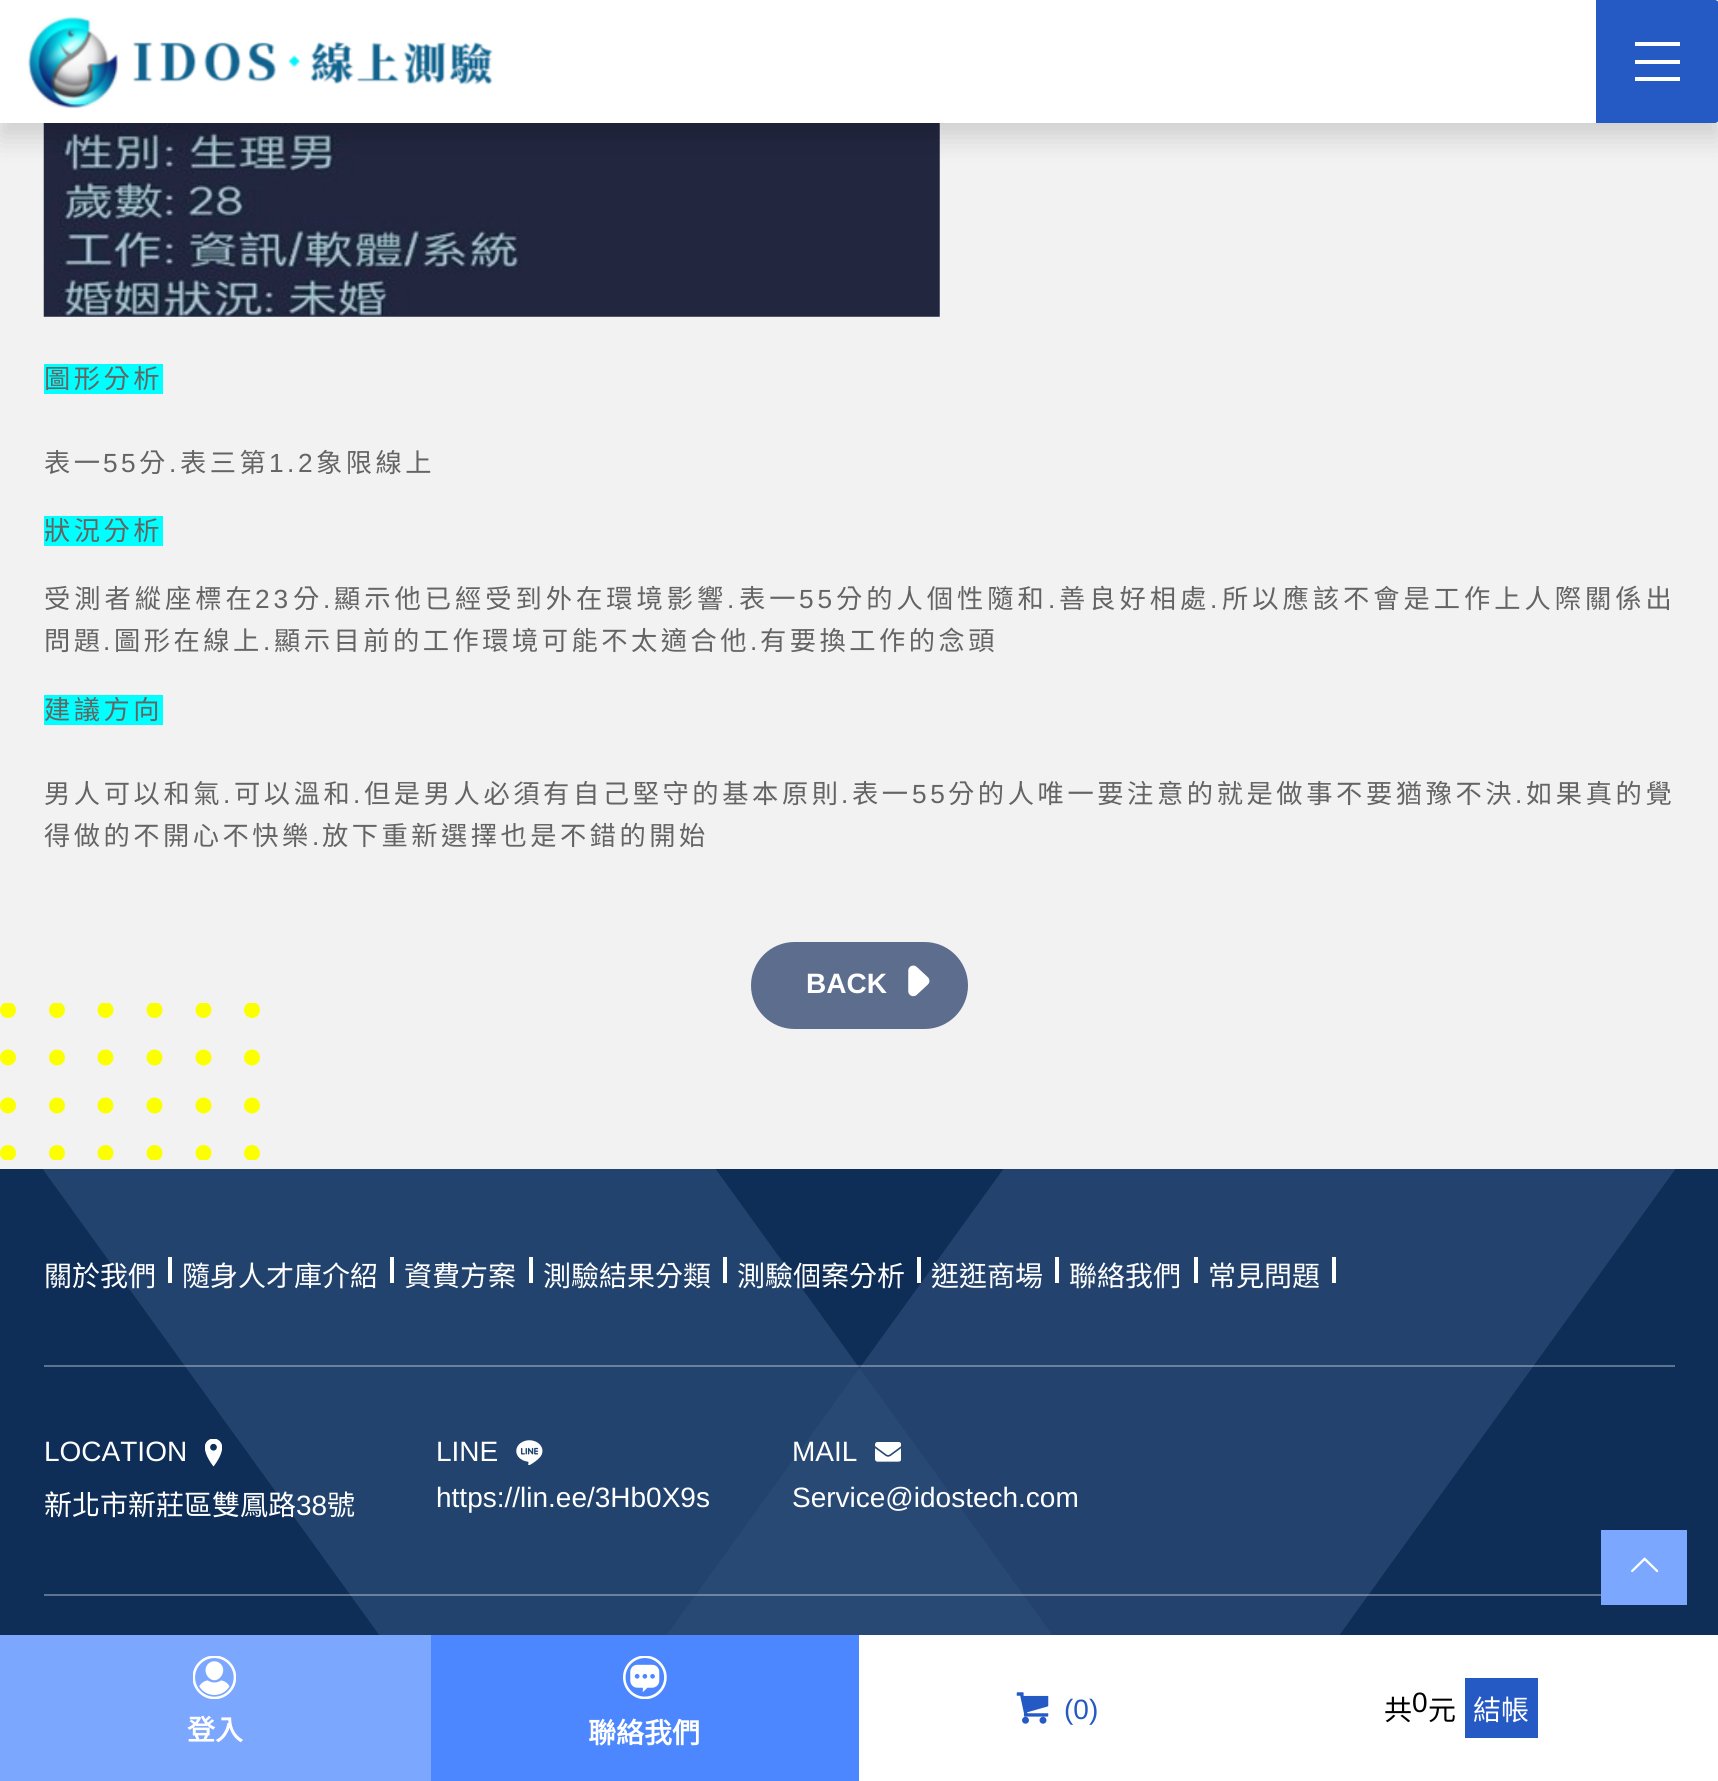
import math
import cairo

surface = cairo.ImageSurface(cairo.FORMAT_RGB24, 1718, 1781)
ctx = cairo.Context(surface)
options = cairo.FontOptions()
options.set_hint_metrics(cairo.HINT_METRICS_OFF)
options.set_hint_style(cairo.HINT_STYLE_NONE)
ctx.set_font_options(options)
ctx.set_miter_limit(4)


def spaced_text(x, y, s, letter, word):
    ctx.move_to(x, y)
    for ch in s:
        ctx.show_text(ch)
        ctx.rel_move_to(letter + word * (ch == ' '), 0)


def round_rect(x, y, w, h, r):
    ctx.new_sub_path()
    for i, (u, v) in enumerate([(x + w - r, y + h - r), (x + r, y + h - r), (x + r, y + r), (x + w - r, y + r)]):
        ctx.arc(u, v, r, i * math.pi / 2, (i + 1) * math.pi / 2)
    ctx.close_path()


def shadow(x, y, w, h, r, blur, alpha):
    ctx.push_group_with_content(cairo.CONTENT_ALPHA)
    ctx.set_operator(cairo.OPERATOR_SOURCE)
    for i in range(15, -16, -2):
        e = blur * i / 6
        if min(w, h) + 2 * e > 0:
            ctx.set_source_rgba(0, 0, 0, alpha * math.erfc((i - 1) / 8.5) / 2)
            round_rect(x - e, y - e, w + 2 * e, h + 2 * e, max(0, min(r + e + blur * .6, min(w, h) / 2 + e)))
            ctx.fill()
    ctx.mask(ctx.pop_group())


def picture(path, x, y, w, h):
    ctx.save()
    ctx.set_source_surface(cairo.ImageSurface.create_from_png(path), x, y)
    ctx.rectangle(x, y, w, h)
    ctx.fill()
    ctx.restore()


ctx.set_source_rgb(0.949, 0.949, 0.949)
ctx.paint()
picture("img2.png", 43, 123, 897, 194)
ctx.set_source_rgb(0, 0, 0)
shadow(0, 14, 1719, 123, 0, 14, 0.15)
ctx.set_source_rgb(1, 1, 1)
ctx.rectangle(0, 0, 1718, 123)
ctx.fill()
picture("img1.png", 28, 16, 465, 93)
ctx.set_source_rgb(0.145, 0.349, 0.765)
ctx.new_path()
ctx.move_to(1596, 0)
ctx.line_to(1715, 0)
ctx.curve_to(1717, 0, 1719, 2, 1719, 4)
ctx.line_to(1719, 119)
ctx.curve_to(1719, 121, 1717, 123, 1715, 123)
ctx.line_to(1596, 123)
ctx.close_path()
ctx.fill()
ctx.set_source_rgb(0.996, 0.996, 0.996)
ctx.rectangle(1635, 60, 45, 4)
ctx.fill()
ctx.rectangle(1635, 42, 45, 4)
ctx.fill()
ctx.rectangle(1635, 77, 45, 4)
ctx.fill()
ctx.set_source_rgb(0, 1, 1)
ctx.rectangle(44, 364, 119, 30)
ctx.fill()
ctx.select_font_face("Noto Sans CJK TC")
ctx.set_font_size(26.25)
ctx.set_source_rgb(0.392, 0.392, 0.392)
spaced_text(44, 388, "圖形分析", 3.5, 0)
spaced_text(44, 472, "表一", 3.5, 0)
ctx.select_font_face("Liberation Sans")
spaced_text(103, 472, "55", 3.5, 0)
ctx.select_font_face("Noto Sans CJK TC")
spaced_text(139, 472, "分", 3.5, 0)
ctx.select_font_face("Liberation Sans")
spaced_text(169, 472, ".", 3.5, 0)
ctx.select_font_face("Noto Sans CJK TC")
spaced_text(180, 472, "表三第", 3.5, 0)
ctx.select_font_face("Liberation Sans")
spaced_text(269, 472, "1.2", 3.5, 0)
ctx.select_font_face("Noto Sans CJK TC")
spaced_text(316, 472, "象限線上", 3.5, 0)
ctx.set_source_rgb(0, 1, 1)
ctx.rectangle(44, 516, 119, 30)
ctx.fill()
ctx.set_source_rgb(0.392, 0.392, 0.392)
spaced_text(44, 540, "狀況分析", 3.5, 0)
spaced_text(44, 608, "受測者縱座標在", 4, 0)
ctx.select_font_face("Liberation Sans")
spaced_text(255, 608, "23", 4, 0)
ctx.select_font_face("Noto Sans CJK TC")
spaced_text(293, 608, "分", 4, 0)
ctx.select_font_face("Liberation Sans")
spaced_text(323, 608, ".", 4, 0)
ctx.select_font_face("Noto Sans CJK TC")
spaced_text(334, 608, "顯示他已經受到外在環境影響", 4, 0)
ctx.select_font_face("Liberation Sans")
spaced_text(727, 608, ".", 4, 0)
ctx.select_font_face("Noto Sans CJK TC")
spaced_text(739, 608, "表一", 4, 0)
ctx.select_font_face("Liberation Sans")
spaced_text(799, 608, "55", 4, 0)
ctx.select_font_face("Noto Sans CJK TC")
spaced_text(836, 608, "分的人個性隨和", 4, 0)
ctx.select_font_face("Liberation Sans")
spaced_text(1048, 608, ".", 4, 0)
ctx.select_font_face("Noto Sans CJK TC")
spaced_text(1059, 608, "善良好相處", 4, 0)
ctx.select_font_face("Liberation Sans")
spaced_text(1210, 608, ".", 4, 0)
ctx.select_font_face("Noto Sans CJK TC")
spaced_text(1222, 608, "所以應該不會是工作上人際關係出", 4, 0)
spaced_text(44, 650, "問題", 3.5, 0)
ctx.select_font_face("Liberation Sans")
spaced_text(103, 650, ".", 3.5, 0)
ctx.select_font_face("Noto Sans CJK TC")
spaced_text(114, 650, "圖形在線上", 3.5, 0)
ctx.select_font_face("Liberation Sans")
spaced_text(263, 650, ".", 3.5, 0)
ctx.select_font_face("Noto Sans CJK TC")
spaced_text(274, 650, "顯示目前的工作環境可能不太適合他", 3.5, 0)
ctx.select_font_face("Liberation Sans")
spaced_text(750, 650, ".", 3.5, 0)
ctx.select_font_face("Noto Sans CJK TC")
spaced_text(760, 650, "有要換工作的念頭", 3.5, 0)
ctx.set_source_rgb(0, 1, 1)
ctx.rectangle(44, 695, 119, 30)
ctx.fill()
ctx.set_source_rgb(0.392, 0.392, 0.392)
spaced_text(44, 719, "建議方向", 3.5, 0)
spaced_text(44, 803, "男人可以和氣", 3.6, 0)
ctx.select_font_face("Liberation Sans")
spaced_text(223, 803, ".", 3.6, 0)
ctx.select_font_face("Noto Sans CJK TC")
spaced_text(234, 803, "可以溫和", 3.6, 0)
ctx.select_font_face("Liberation Sans")
spaced_text(353, 803, ".", 3.6, 0)
ctx.select_font_face("Noto Sans CJK TC")
spaced_text(364, 803, "但是男人必須有自己堅守的基本原則", 3.6, 0)
ctx.select_font_face("Liberation Sans")
spaced_text(841, 803, ".", 3.6, 0)
ctx.select_font_face("Noto Sans CJK TC")
spaced_text(852, 803, "表一", 3.6, 0)
ctx.select_font_face("Liberation Sans")
spaced_text(912, 803, "55", 3.6, 0)
ctx.select_font_face("Noto Sans CJK TC")
spaced_text(948, 803, "分的人唯一要注意的就是做事不要猶豫不決", 3.6, 0)
ctx.select_font_face("Liberation Sans")
spaced_text(1515, 803, ".", 3.6, 0)
ctx.select_font_face("Noto Sans CJK TC")
spaced_text(1526, 803, "如果真的覺", 3.6, 0)
spaced_text(44, 845, "得做的不開心不快樂", 3.5, 0)
ctx.select_font_face("Liberation Sans")
spaced_text(312, 845, ".", 3.5, 0)
ctx.select_font_face("Noto Sans CJK TC")
spaced_text(322, 845, "放下重新選擇也是不錯的開始", 3.5, 0)
ctx.set_source_rgb(0.365, 0.427, 0.557)
round_rect(751, 942, 217, 87, 43.5)
ctx.fill()
ctx.select_font_face("Liberation Sans", cairo.FONT_SLANT_NORMAL, cairo.FONT_WEIGHT_BOLD)
ctx.set_font_size(28)
ctx.set_source_rgb(1, 1, 1)
ctx.move_to(806, 993)
ctx.show_text("BACK")
picture("img3.png", 908, 965, 22, 32)
picture("img4.png", 0, 1003, 260, 157)
ctx.set_source_rgb(0.055, 0.18, 0.341)
ctx.rectangle(0, 1169, 1718, 466)
ctx.fill()
ctx.save()
ctx.rectangle(0, 1169, 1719, 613)
ctx.clip()
ctx.set_source_rgb(0.137, 0.263, 0.431)
ctx.new_path()
ctx.move_to(1046, 1110)
ctx.line_to(1718, 1110)
ctx.line_to(1191, 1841)
ctx.line_to(518, 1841)
ctx.close_path()
ctx.fill()
ctx.set_source_rgba(0.169, 0.298, 0.467, 0.71)
ctx.new_path()
ctx.move_to(673, 1110)
ctx.line_to(0, 1110)
ctx.line_to(528, 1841)
ctx.line_to(1201, 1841)
ctx.close_path()
ctx.fill()
ctx.restore()
ctx.set_source_rgba(1, 1, 1, 0.33)
ctx.rectangle(44, 1365, 1631, 2)
ctx.fill()
ctx.select_font_face("Noto Sans CJK TC")
ctx.set_source_rgb(1, 1, 1)
ctx.move_to(44, 1286)
ctx.show_text("關於我們")
ctx.rectangle(168, 1257, 4, 26)
ctx.fill()
ctx.move_to(182, 1286)
ctx.show_text("隨身人才庫介紹")
ctx.rectangle(390, 1257, 4, 26)
ctx.fill()
ctx.move_to(404, 1286)
ctx.show_text("資費方案")
ctx.rectangle(529, 1257, 4, 26)
ctx.fill()
ctx.move_to(543, 1286)
ctx.show_text("測驗結果分類")
ctx.rectangle(723, 1257, 4, 26)
ctx.fill()
ctx.move_to(737, 1286)
ctx.show_text("測驗個案分析")
ctx.rectangle(917, 1257, 4, 26)
ctx.fill()
ctx.move_to(931, 1286)
ctx.show_text("逛逛商場")
ctx.rectangle(1055, 1257, 4, 26)
ctx.fill()
ctx.move_to(1069, 1286)
ctx.show_text("聯絡我們")
ctx.rectangle(1194, 1257, 4, 26)
ctx.fill()
ctx.move_to(1208, 1286)
ctx.show_text("常見問題")
ctx.rectangle(1332, 1257, 4, 26)
ctx.fill()
ctx.set_source_rgba(1, 1, 1, 0.33)
ctx.rectangle(44, 1594, 1557, 2)
ctx.fill()
ctx.select_font_face("Liberation Sans")
ctx.set_source_rgb(1, 1, 1)
ctx.move_to(44, 1461)
ctx.show_text("LOCATION")
picture("img5.png", 205, 1439, 17, 28)
ctx.select_font_face("Noto Sans CJK TC")
ctx.move_to(44, 1515)
ctx.show_text("新北市新莊區雙鳳路")
ctx.select_font_face("Liberation Sans")
ctx.move_to(296, 1515)
ctx.show_text("38")
ctx.select_font_face("Noto Sans CJK TC")
ctx.move_to(327, 1515)
ctx.show_text("號")
ctx.select_font_face("Liberation Sans")
ctx.move_to(436, 1461)
ctx.show_text("LINE")
picture("img6.png", 516, 1440, 27, 25)
ctx.move_to(436, 1507)
ctx.show_text("https://lin.ee/3Hb0X9s")
ctx.move_to(792, 1461)
ctx.show_text("MAIL")
picture("img7.png", 875, 1442, 26, 20)
ctx.move_to(792, 1507)
ctx.show_text("Service@idostech.com")
ctx.set_source_rgb(0.482, 0.655, 1)
ctx.rectangle(1601, 1530, 86, 75)
ctx.fill()
picture("img8.png", 1631, 1557, 28, 16)
ctx.set_source_rgb(1, 1, 1)
ctx.rectangle(859, 1635, 859, 146)
ctx.fill()
picture("img9.png", 1016, 1692, 33, 32)
ctx.set_source_rgb(0.145, 0.349, 0.765)
ctx.move_to(1064, 1719)
ctx.show_text("(0)")
ctx.select_font_face("Noto Sans CJK TC")
ctx.set_source_rgb(0, 0, 0)
ctx.move_to(1384, 1720)
ctx.show_text("共")
ctx.select_font_face("Liberation Sans")
ctx.move_to(1412, 1712)
ctx.show_text("0")
ctx.select_font_face("Noto Sans CJK TC")
ctx.move_to(1428, 1720)
ctx.show_text("元")
ctx.set_source_rgb(0.145, 0.349, 0.765)
ctx.rectangle(1465, 1678, 73, 60)
ctx.fill()
ctx.set_source_rgb(1, 1, 1)
ctx.move_to(1473, 1720)
ctx.show_text("結帳")
ctx.set_source_rgb(0.482, 0.655, 1)
ctx.rectangle(0, 1635, 431, 146)
ctx.fill()
picture("img10.png", 193, 1656, 43, 43)
ctx.select_font_face("Noto Sans CJK TC", cairo.FONT_SLANT_NORMAL, cairo.FONT_WEIGHT_BOLD)
ctx.set_source_rgb(1, 1, 1)
ctx.move_to(187, 1740)
ctx.show_text("登入")
ctx.set_source_rgb(0.298, 0.529, 1)
ctx.rectangle(431, 1635, 428, 146)
ctx.fill()
picture("img11.png", 623, 1656, 44, 43)
ctx.set_source_rgb(1, 1, 1)
ctx.move_to(588, 1743)
ctx.show_text("聯絡我們")
surface.write_to_png("page.png")
